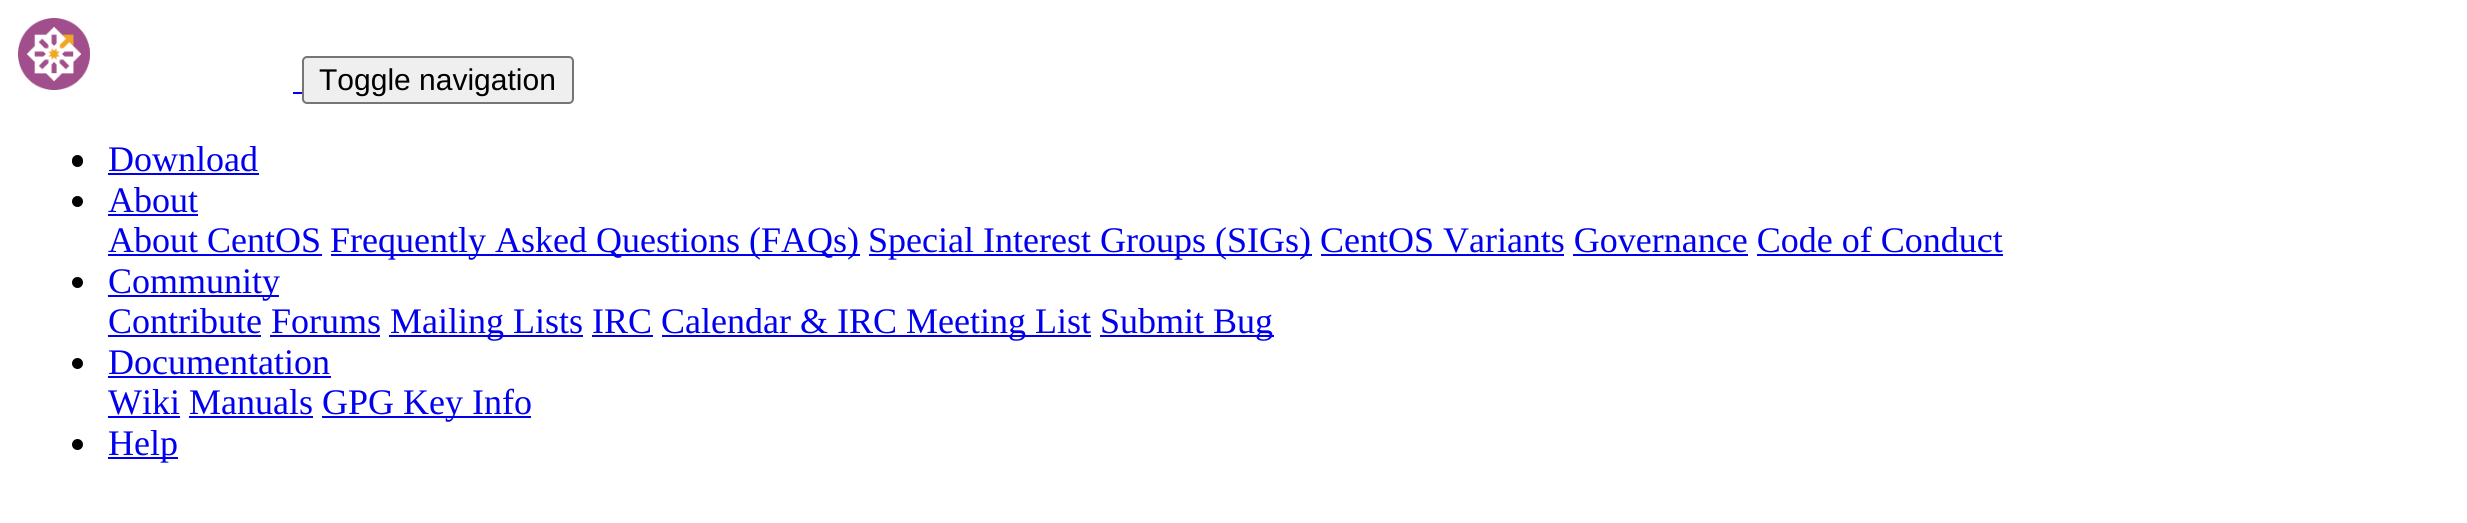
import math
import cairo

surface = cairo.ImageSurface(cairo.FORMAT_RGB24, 2467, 523)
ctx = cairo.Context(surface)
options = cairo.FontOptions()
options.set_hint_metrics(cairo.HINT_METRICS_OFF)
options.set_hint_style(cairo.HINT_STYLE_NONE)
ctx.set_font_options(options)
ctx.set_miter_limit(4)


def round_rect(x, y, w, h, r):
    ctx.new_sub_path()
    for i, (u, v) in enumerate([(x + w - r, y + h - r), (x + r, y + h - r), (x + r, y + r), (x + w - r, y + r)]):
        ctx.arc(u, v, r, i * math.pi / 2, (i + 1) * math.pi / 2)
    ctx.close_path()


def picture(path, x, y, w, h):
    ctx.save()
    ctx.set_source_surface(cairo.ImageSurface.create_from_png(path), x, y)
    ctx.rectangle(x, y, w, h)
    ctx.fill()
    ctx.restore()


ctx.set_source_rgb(1, 1, 1)
ctx.paint()
picture("img1.png", 18, 18, 72, 72)
ctx.set_source_rgb(0, 0, 0.933)
ctx.rectangle(293, 92, 9, 2)
ctx.fill()
ctx.set_source_rgb(0.937, 0.937, 0.937)
round_rect(303, 57, 270, 46, 4)
ctx.fill_preserve()
ctx.set_source_rgb(0.463, 0.463, 0.463)
ctx.stroke()
ctx.select_font_face("Liberation Sans")
ctx.set_font_size(30)
ctx.set_source_rgb(0, 0, 0)
ctx.move_to(319, 90)
ctx.show_text("Toggle navigation")
round_rect(72, 155, 11, 12, 5.5)
ctx.fill()
ctx.select_font_face("Liberation Serif")
ctx.set_font_size(36)
ctx.set_source_rgb(0, 0, 0.933)
ctx.move_to(108, 171)
ctx.show_text("Download")
ctx.rectangle(108, 173, 151, 2)
ctx.fill()
ctx.set_source_rgb(0, 0, 0)
ctx.arc(77.5, 201.5, 5.5, 0, 2 * math.pi)
ctx.fill()
ctx.set_source_rgb(0, 0, 0.933)
ctx.move_to(108, 212)
ctx.show_text("About")
ctx.rectangle(108, 214, 90, 2)
ctx.fill()
ctx.move_to(108, 252)
ctx.show_text("About CentOS")
ctx.rectangle(108, 254, 214, 2)
ctx.fill()
ctx.rectangle(331, 254, 529, 2)
ctx.fill()
ctx.move_to(330, 252)
ctx.show_text("Frequently Asked Questions (FAQs)")
ctx.rectangle(869, 254, 443, 2)
ctx.fill()
ctx.move_to(868, 252)
ctx.show_text("Special Interest Groups (SIGs) CentOS Variants Governance Code of Conduct")
ctx.rectangle(1321, 254, 243, 2)
ctx.fill()
ctx.rectangle(1573, 254, 175, 2)
ctx.fill()
ctx.rectangle(1757, 254, 246, 2)
ctx.fill()
ctx.set_source_rgb(0, 0, 0)
ctx.arc(77.5, 282.5, 5.5, 0, 2 * math.pi)
ctx.fill()
ctx.set_source_rgb(0, 0, 0.933)
ctx.rectangle(108, 295, 171, 2)
ctx.fill()
ctx.move_to(108, 293)
ctx.show_text("Community")
ctx.move_to(108, 333)
ctx.show_text("Contribute Forums")
ctx.rectangle(108, 335, 153, 2)
ctx.fill()
ctx.rectangle(389, 335, 194, 2)
ctx.fill()
ctx.move_to(390, 333)
ctx.show_text("Mailing Lists IRC")
ctx.rectangle(662, 335, 429, 2)
ctx.fill()
ctx.move_to(661, 333)
ctx.show_text("Calendar & IRC Meeting List")
ctx.rectangle(1100, 335, 174, 2)
ctx.fill()
ctx.move_to(1100, 333)
ctx.show_text("Submit Bug")
ctx.rectangle(270, 335, 110, 2)
ctx.fill()
ctx.rectangle(592, 335, 61, 2)
ctx.fill()
ctx.set_source_rgb(0, 0, 0)
ctx.arc(77.5, 363.5, 5.5, 0, 2 * math.pi)
ctx.fill()
ctx.set_source_rgb(0, 0, 0.933)
ctx.move_to(108, 374)
ctx.show_text("Documentation")
ctx.rectangle(108, 376, 223, 2)
ctx.fill()
ctx.move_to(108, 414)
ctx.show_text("Wiki Manuals")
ctx.rectangle(108, 416, 72, 2)
ctx.fill()
ctx.rectangle(322, 416, 209, 2)
ctx.fill()
ctx.move_to(322, 414)
ctx.show_text("GPG Key Info")
ctx.rectangle(189, 416, 124, 2)
ctx.fill()
ctx.set_source_rgb(0, 0, 0)
ctx.arc(77.5, 444.5, 5.5, 0, 2 * math.pi)
ctx.fill()
ctx.set_source_rgb(0, 0, 0.933)
ctx.rectangle(108, 457, 70, 2)
ctx.fill()
ctx.move_to(108, 455)
ctx.show_text("Help")
surface.write_to_png("page.png")
